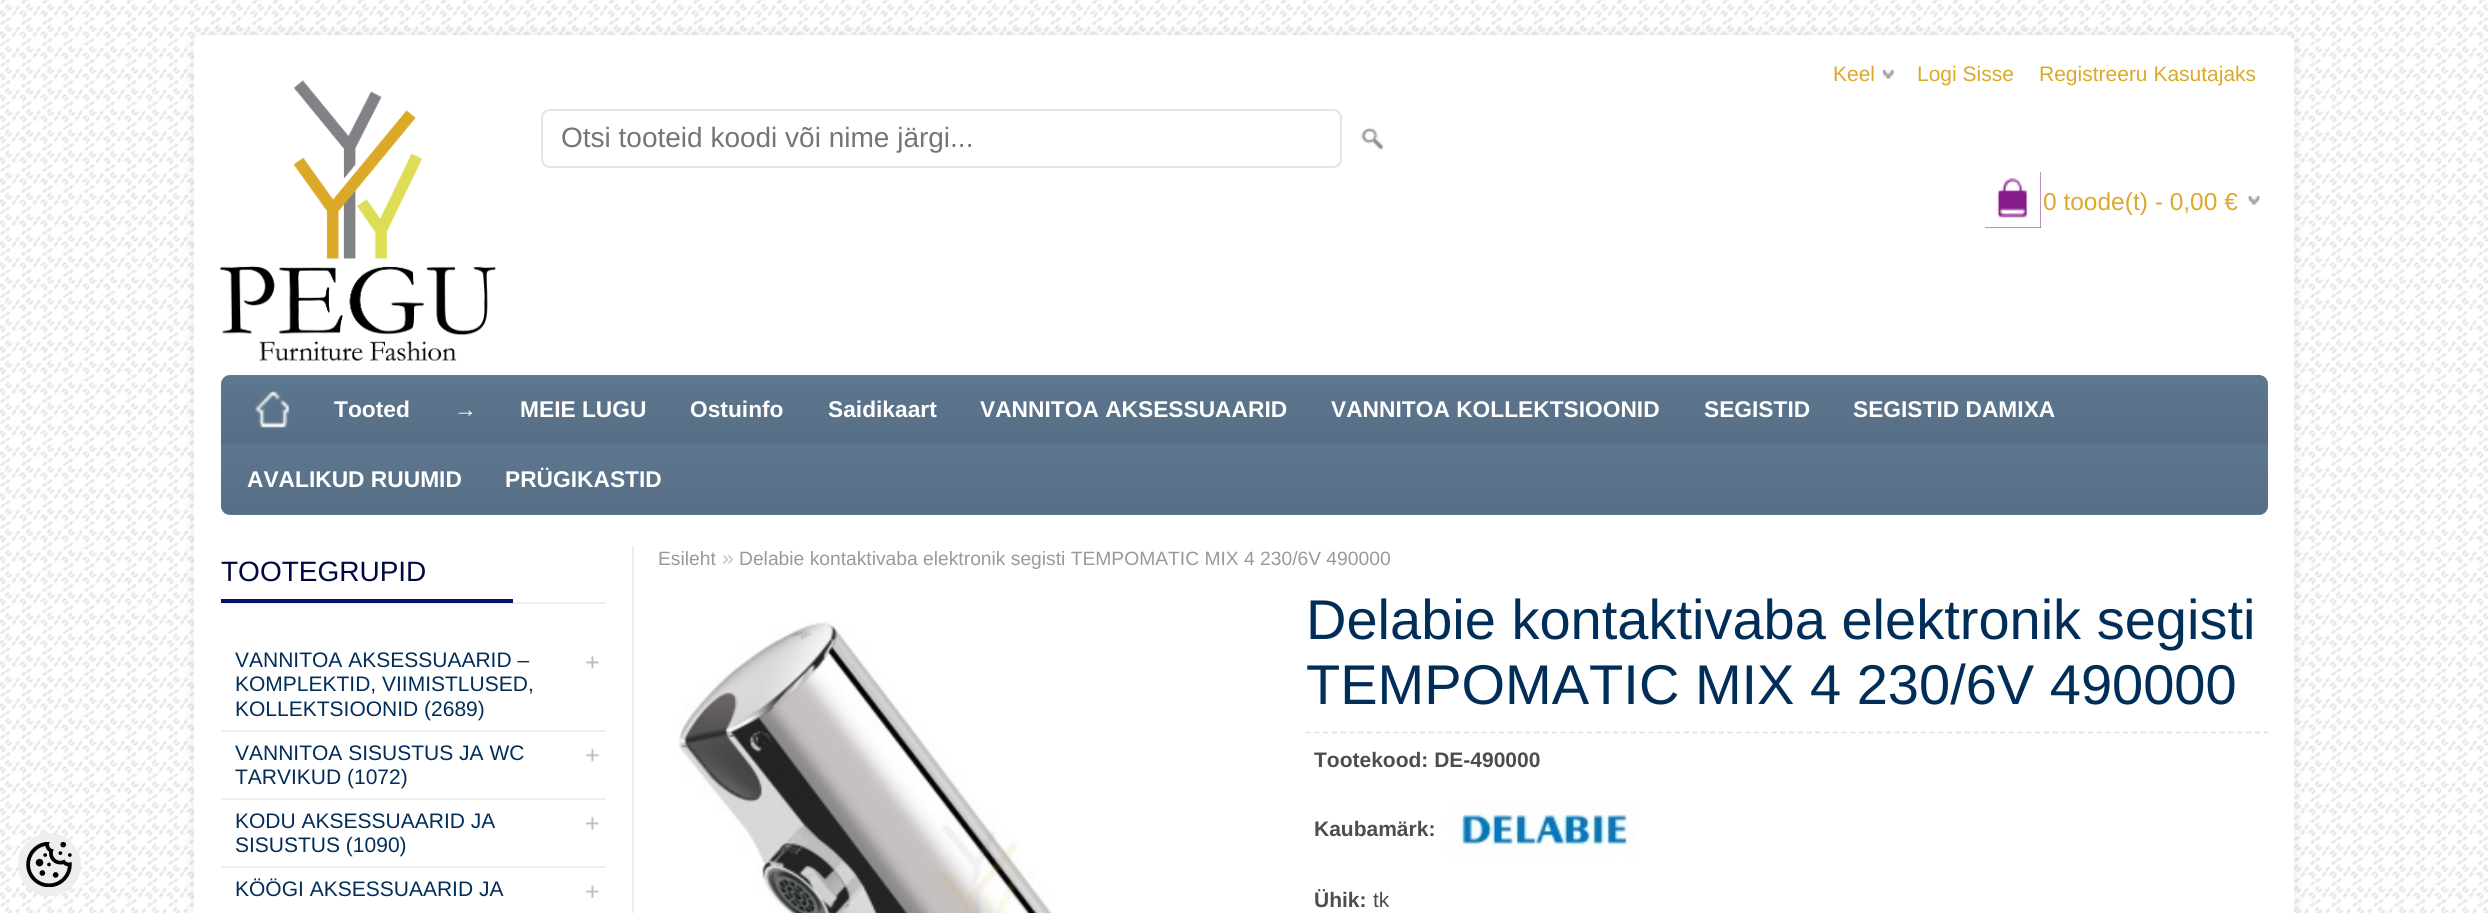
import math
import cairo

surface = cairo.ImageSurface(cairo.FORMAT_RGB24, 2488, 913)
ctx = cairo.Context(surface)
options = cairo.FontOptions()
options.set_hint_metrics(cairo.HINT_METRICS_OFF)
options.set_hint_style(cairo.HINT_STYLE_NONE)
ctx.set_font_options(options)
ctx.set_miter_limit(4)


def round_rect(x, y, w, h, r):
    ctx.new_sub_path()
    for i, (u, v) in enumerate([(x + w - r, y + h - r), (x + r, y + h - r), (x + r, y + r), (x + w - r, y + r)]):
        ctx.arc(u, v, r, i * math.pi / 2, (i + 1) * math.pi / 2)
    ctx.close_path()


def shadow(x, y, w, h, r, blur, alpha):
    ctx.push_group_with_content(cairo.CONTENT_ALPHA)
    ctx.set_operator(cairo.OPERATOR_SOURCE)
    for i in range(15, -16, -2):
        e = blur * i / 6
        if min(w, h) + 2 * e > 0:
            ctx.set_source_rgba(0, 0, 0, alpha * math.erfc((i - 1) / 8.5) / 2)
            round_rect(x - e, y - e, w + 2 * e, h + 2 * e, max(0, min(r + e + blur * .6, min(w, h) / 2 + e)))
            ctx.fill()
    ctx.mask(ctx.pop_group())


def picture(path, x, y, w, h):
    ctx.save()
    ctx.set_source_surface(cairo.ImageSurface.create_from_png(path), x, y)
    ctx.rectangle(x, y, w, h)
    ctx.fill()
    ctx.restore()


ctx.set_source_rgb(1, 1, 1)
ctx.paint()
picture("img1.png", 0, 0, 2488, 913)
ctx.set_source_rgb(0.933, 0.933, 0.933)
ctx.arc(49.5, 864.5, 31.5, 0, 2 * math.pi)
ctx.fill()
picture("img2.png", 26, 842, 46, 45)
ctx.set_source_rgb(0, 0, 0)
shadow(194, 35, 2100, 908, 9, 7, 0.08)
ctx.set_source_rgb(1, 1, 1)
ctx.new_path()
ctx.move_to(203, 35)
ctx.line_to(2285, 35)
ctx.curve_to(2290, 35, 2294, 39, 2294, 44)
ctx.line_to(2294, 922)
ctx.line_to(194, 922)
ctx.line_to(194, 44)
ctx.curve_to(194, 39, 198, 35, 203, 35)
ctx.close_path()
ctx.fill()
picture("img3.png", 1883, 70, 11, 9)
ctx.select_font_face("Liberation Sans")
ctx.set_font_size(21)
ctx.set_source_rgb(0.859, 0.659, 0.157)
ctx.move_to(1833, 81)
ctx.show_text("Keel")
ctx.move_to(1917, 81)
ctx.show_text("Logi Sisse")
ctx.move_to(2039, 81)
ctx.show_text("Registreeru Kasutajaks")
picture("img4.png", 220, 80, 276, 281)
round_rect(542, 110, 799, 57, 8)
ctx.set_source_rgb(0.894, 0.894, 0.894)
ctx.stroke()
ctx.set_font_size(28)
ctx.set_source_rgb(0.459, 0.459, 0.459)
ctx.move_to(561, 147)
ctx.show_text("Otsi tooteid koodi või nime järgi...")
picture("img5.png", 1361, 127, 23, 23)
ctx.set_source_rgb(0.529, 0.102, 0.541)
ctx.rectangle(1985, 172, 56, 56)
ctx.fill()
picture("img6.png", 1985, 172, 56, 56)
picture("img7.png", 2248, 196, 12, 9)
ctx.set_font_size(24.5)
ctx.set_source_rgb(0.859, 0.659, 0.157)
ctx.move_to(2043, 210)
ctx.show_text("0 toode(t) - 0,00 €")
ctx.set_source_rgb(0.369, 0.471, 0.569)
round_rect(221, 375, 2047, 140, 9)
ctx.fill()
picture("img8.png", 221, 384, 2047, 130)
picture("img9.png", 255, 391, 35, 37)
ctx.select_font_face("Liberation Sans", cairo.FONT_SLANT_NORMAL, cairo.FONT_WEIGHT_BOLD)
ctx.set_font_size(22.75)
ctx.set_source_rgb(1, 1, 1)
ctx.move_to(334, 417)
ctx.show_text("Tooted")
ctx.move_to(454, 417)
ctx.show_text("→")
ctx.move_to(520, 417)
ctx.show_text("MEIE LUGU")
ctx.move_to(690, 417)
ctx.show_text("Ostuinfo")
ctx.move_to(828, 417)
ctx.show_text("Saidikaart")
ctx.move_to(980, 417)
ctx.show_text("VANNITOA AKSESSUAARID")
ctx.move_to(1331, 417)
ctx.show_text("VANNITOA KOLLEKTSIOONID")
ctx.move_to(1704, 417)
ctx.show_text("SEGISTID")
ctx.move_to(1853, 417)
ctx.show_text("SEGISTID DAMIXA")
ctx.move_to(247, 487)
ctx.show_text("AVALIKUD RUUMID")
ctx.move_to(505, 487)
ctx.show_text("PRÜGIKASTID")
ctx.set_source_rgb(0.933, 0.933, 0.933)
ctx.rectangle(632, 546, 2, 367)
ctx.fill()
ctx.rectangle(221, 602, 385, 2)
ctx.fill()
ctx.set_source_rgb(0.02, 0.082, 0.4)
ctx.rectangle(221, 599, 292, 4)
ctx.fill()
ctx.select_font_face("Liberation Sans")
ctx.set_font_size(28)
ctx.set_source_rgb(0.004, 0.031, 0.259)
ctx.move_to(221, 581)
ctx.show_text("TOOTEGRUPID")
ctx.set_font_size(21)
ctx.set_source_rgb(0.004, 0.176, 0.349)
ctx.move_to(235, 667)
ctx.show_text("VANNITOA AKSESSUAARID –")
ctx.move_to(235, 691)
ctx.show_text("KOMPLEKTID, VIIMISTLUSED,")
ctx.move_to(235, 716)
ctx.show_text("KOLLEKTSIOONID (2689)")
picture("img10.png", 585, 655, 14, 14)
ctx.set_source_rgb(0.933, 0.933, 0.933)
ctx.rectangle(221, 730, 385, 2)
ctx.fill()
ctx.set_source_rgb(0.004, 0.176, 0.349)
ctx.move_to(235, 760)
ctx.show_text("VANNITOA SISUSTUS JA WC")
ctx.move_to(235, 784)
ctx.show_text("TARVIKUD (1072)")
picture("img11.png", 585, 748, 14, 14)
ctx.set_source_rgb(0.933, 0.933, 0.933)
ctx.rectangle(221, 798, 385, 2)
ctx.fill()
ctx.set_source_rgb(0.004, 0.176, 0.349)
ctx.move_to(235, 828)
ctx.show_text("KODU AKSESSUAARID JA")
ctx.move_to(235, 852)
ctx.show_text("SISUSTUS (1090)")
picture("img10.png", 585, 816, 14, 14)
ctx.set_source_rgb(0.933, 0.933, 0.933)
ctx.rectangle(221, 866, 385, 2)
ctx.fill()
ctx.set_source_rgb(0.004, 0.176, 0.349)
ctx.move_to(235, 896)
ctx.show_text("KÖÖGI AKSESSUAARID JA")
picture("img12.png", 585, 885, 14, 14)
ctx.set_font_size(19.25)
ctx.set_source_rgb(0.6, 0.6, 0.6)
ctx.move_to(658, 565)
ctx.show_text("Esileht")
ctx.set_font_size(21)
ctx.set_source_rgb(0.761, 0.761, 0.761)
ctx.move_to(722, 565)
ctx.show_text("»")
ctx.set_font_size(19.25)
ctx.set_source_rgb(0.6, 0.6, 0.6)
ctx.move_to(739, 565)
ctx.show_text("Delabie kontaktivaba elektronik segisti TEMPOMATIC MIX 4 230/6V 490000")
picture("img13.png", 678, 620, 374, 293)
ctx.set_font_size(56)
ctx.set_source_rgb(0.004, 0.176, 0.349)
ctx.move_to(1306, 639)
ctx.show_text("Delabie kontaktivaba elektronik segisti")
ctx.move_to(1306, 704)
ctx.show_text("TEMPOMATIC MIX 4 230/6V 490000")
ctx.new_path()
ctx.move_to(1305.5, 732.5)
ctx.line_to(2268, 732.5)
ctx.set_source_rgb(0.886, 0.886, 0.886)
ctx.set_line_width(1.8)
ctx.set_dash([5.25, 3.54])
ctx.stroke()
ctx.select_font_face("Liberation Sans", cairo.FONT_SLANT_NORMAL, cairo.FONT_WEIGHT_BOLD)
ctx.set_font_size(21)
ctx.set_source_rgb(0.302, 0.302, 0.302)
ctx.move_to(1314, 767)
ctx.show_text("Tootekood: DE-490000")
ctx.move_to(1314, 836)
ctx.show_text("Kaubamärk:")
picture("img14.png", 1446, 804, 191, 57)
ctx.move_to(1314, 907)
ctx.show_text("Ühik:")
ctx.select_font_face("Liberation Sans")
ctx.move_to(1373, 907)
ctx.show_text("tk")
surface.write_to_png("page.png")
